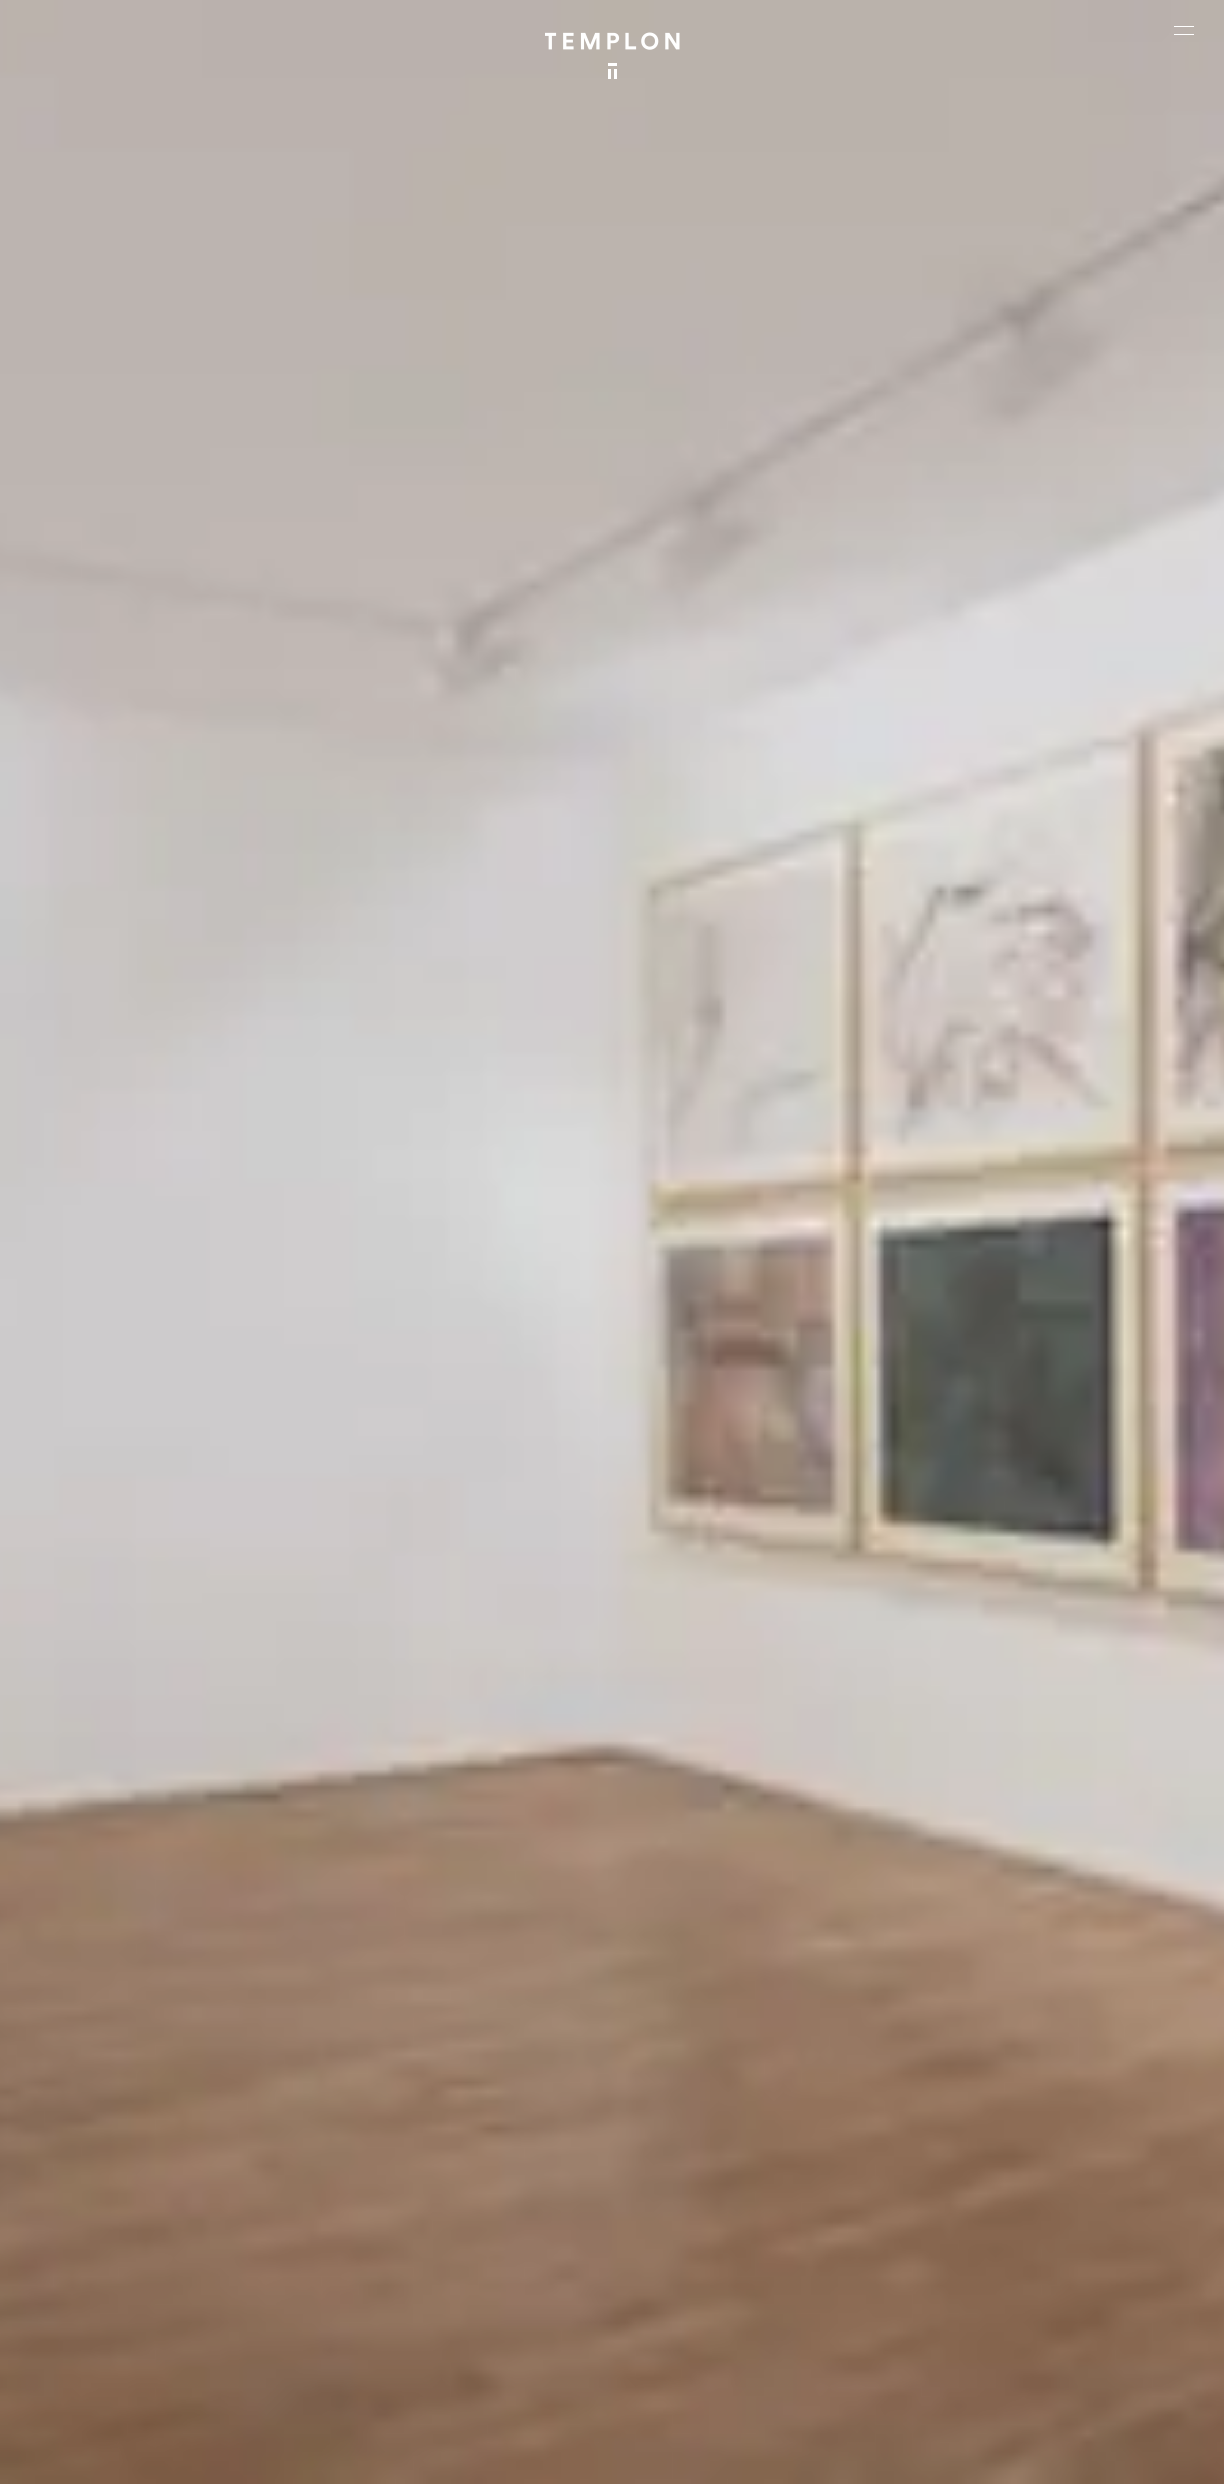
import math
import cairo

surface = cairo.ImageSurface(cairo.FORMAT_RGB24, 1224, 2484)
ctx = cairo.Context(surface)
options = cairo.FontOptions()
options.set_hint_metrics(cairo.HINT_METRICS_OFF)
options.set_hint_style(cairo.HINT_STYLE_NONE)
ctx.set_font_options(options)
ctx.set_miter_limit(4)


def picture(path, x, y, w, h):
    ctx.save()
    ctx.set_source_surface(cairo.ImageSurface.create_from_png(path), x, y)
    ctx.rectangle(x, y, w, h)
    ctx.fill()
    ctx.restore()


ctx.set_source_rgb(1, 1, 1)
ctx.paint()
picture("img1.png", 0, 0, 1224, 2484)
ctx.set_source_rgb(1, 1, 1)
ctx.rectangle(1174, 26, 20, 1)
ctx.fill()
ctx.rectangle(1174, 34, 20, 1)
ctx.fill()
picture("img2.png", 545, 32, 135, 18)
ctx.rectangle(608, 69, 3, 10)
ctx.fill()
ctx.rectangle(614, 69, 3, 10)
ctx.fill()
ctx.rectangle(608, 63, 9, 3)
ctx.fill()
surface.write_to_png("page.png")
